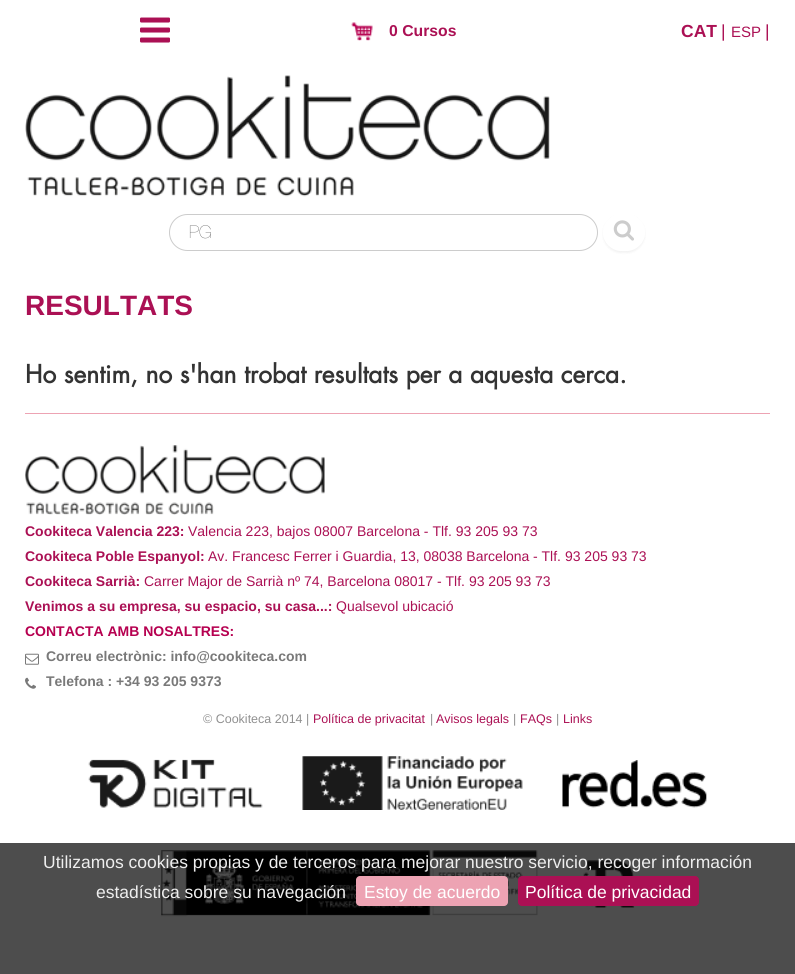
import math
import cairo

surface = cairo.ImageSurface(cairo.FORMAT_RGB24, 795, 974)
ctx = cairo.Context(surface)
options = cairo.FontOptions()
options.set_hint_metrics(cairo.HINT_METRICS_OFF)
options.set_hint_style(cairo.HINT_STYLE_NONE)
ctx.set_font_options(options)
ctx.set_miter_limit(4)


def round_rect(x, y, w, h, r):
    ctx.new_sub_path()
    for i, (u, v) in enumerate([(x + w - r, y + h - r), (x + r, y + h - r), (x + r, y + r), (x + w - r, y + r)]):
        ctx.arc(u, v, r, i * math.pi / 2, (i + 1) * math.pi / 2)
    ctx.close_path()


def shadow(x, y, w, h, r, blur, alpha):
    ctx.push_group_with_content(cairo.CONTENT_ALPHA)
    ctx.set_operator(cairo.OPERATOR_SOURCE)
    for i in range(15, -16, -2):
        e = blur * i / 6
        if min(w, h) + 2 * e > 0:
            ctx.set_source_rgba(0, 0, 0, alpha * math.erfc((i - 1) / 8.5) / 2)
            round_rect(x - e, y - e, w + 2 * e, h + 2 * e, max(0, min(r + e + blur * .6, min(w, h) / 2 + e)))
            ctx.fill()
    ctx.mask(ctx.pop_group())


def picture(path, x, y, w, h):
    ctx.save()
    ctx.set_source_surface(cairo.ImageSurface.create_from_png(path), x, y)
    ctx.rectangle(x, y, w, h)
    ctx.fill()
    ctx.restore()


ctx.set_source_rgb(1, 1, 1)
ctx.paint()
ctx.set_source_rgb(0.302, 0.302, 0.302)
ctx.rectangle(0, 843, 795, 131)
ctx.fill()
picture("img1.png", 140, 17, 30, 26)
picture("img2.png", 351, 22, 22, 19)
ctx.select_font_face("Liberation Sans", cairo.FONT_SLANT_NORMAL, cairo.FONT_WEIGHT_BOLD)
ctx.set_font_size(15.75)
ctx.set_source_rgb(0.671, 0.063, 0.329)
ctx.move_to(389, 36)
ctx.show_text("0 Cursos")
ctx.set_font_size(17.5)
ctx.move_to(681, 37)
ctx.show_text("CAT")
ctx.select_font_face("Liberation Sans")
ctx.move_to(721, 37)
ctx.show_text("|")
ctx.set_font_size(15)
ctx.move_to(731, 37)
ctx.show_text("ESP")
ctx.set_font_size(17.5)
ctx.move_to(765, 37)
ctx.show_text("|")
picture("img3.png", 25, 75, 525, 122)
round_rect(169.5, 214.5, 428, 36, 18)
ctx.set_source_rgb(0.8, 0.8, 0.8)
ctx.set_line_width(1)
ctx.stroke()
ctx.select_font_face("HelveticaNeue")
ctx.set_source_rgb(0.333, 0.333, 0.333)
ctx.move_to(189, 238)
ctx.show_text("PG")
ctx.save()
ctx.set_fill_rule(cairo.FILL_RULE_EVEN_ODD)
ctx.new_path()
ctx.move_to(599, 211)
ctx.line_to(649, 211)
ctx.line_to(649, 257)
ctx.line_to(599, 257)
ctx.close_path()
ctx.move_to(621.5, 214)
ctx.line_to(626.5, 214)
ctx.curve_to(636.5, 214, 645, 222.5, 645, 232.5)
ctx.curve_to(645, 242.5, 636.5, 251, 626.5, 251)
ctx.line_to(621.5, 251)
ctx.curve_to(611.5, 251, 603, 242.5, 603, 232.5)
ctx.curve_to(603, 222.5, 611.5, 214, 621.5, 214)
ctx.close_path()
ctx.clip()
ctx.set_source_rgb(0, 0, 0)
shadow(603, 215, 42, 38, 19, 1, 0.05)
ctx.restore()
picture("img4.png", 613, 220, 21, 21)
ctx.select_font_face("Liberation Sans", cairo.FONT_SLANT_NORMAL, cairo.FONT_WEIGHT_BOLD)
ctx.set_font_size(28)
ctx.set_source_rgb(0.671, 0.063, 0.329)
ctx.move_to(25, 315)
ctx.show_text("RESULTATS")
ctx.select_font_face("Futura", cairo.FONT_SLANT_NORMAL, cairo.FONT_WEIGHT_BOLD)
ctx.set_font_size(24.5)
ctx.set_source_rgb(0.2, 0.2, 0.2)
ctx.move_to(25, 383)
ctx.show_text("Ho sentim, no s'han trobat resultats per a aquesta cerca.")
ctx.set_source_rgb(0.929, 0.639, 0.702)
ctx.rectangle(25, 413, 745, 1)
ctx.fill()
picture("img5.png", 25, 445, 300, 70)
ctx.select_font_face("Liberation Sans", cairo.FONT_SLANT_NORMAL, cairo.FONT_WEIGHT_BOLD)
ctx.set_font_size(14)
ctx.set_source_rgb(0.671, 0.063, 0.329)
ctx.move_to(25, 536)
ctx.show_text("Cookiteca Valencia 223:")
ctx.select_font_face("Liberation Sans")
ctx.move_to(188, 536)
ctx.show_text("Valencia 223, bajos 08007 Barcelona - Tlf. 93 205 93 73")
ctx.select_font_face("Liberation Sans", cairo.FONT_SLANT_NORMAL, cairo.FONT_WEIGHT_BOLD)
ctx.move_to(25, 561)
ctx.show_text("Cookiteca Poble Espanyol:")
ctx.select_font_face("Liberation Sans")
ctx.move_to(208, 561)
ctx.show_text("Av. Francesc Ferrer i Guardia, 13, 08038 Barcelona")
ctx.move_to(533, 561)
ctx.show_text("- Tlf. 93 205 93 73")
ctx.select_font_face("Liberation Sans", cairo.FONT_SLANT_NORMAL, cairo.FONT_WEIGHT_BOLD)
ctx.move_to(25, 586)
ctx.show_text("Cookiteca Sarrià:")
ctx.select_font_face("Liberation Sans")
ctx.move_to(144, 586)
ctx.show_text("Carrer Major de Sarrià nº 74, Barcelona 08017")
ctx.move_to(437, 586)
ctx.show_text("- Tlf. 93 205 93 73")
ctx.select_font_face("Liberation Sans", cairo.FONT_SLANT_NORMAL, cairo.FONT_WEIGHT_BOLD)
ctx.move_to(25, 611)
ctx.show_text("Venimos a su empresa, su espacio, su casa...:")
ctx.select_font_face("Liberation Sans")
ctx.move_to(336, 611)
ctx.show_text("Qualsevol ubicació")
ctx.select_font_face("Liberation Sans", cairo.FONT_SLANT_NORMAL, cairo.FONT_WEIGHT_BOLD)
ctx.set_source_rgb(0.714, 0, 0.314)
ctx.move_to(25, 636)
ctx.show_text("CONTACTA AMB NOSALTRES:")
picture("img6.png", 25, 653, 14, 12)
ctx.set_source_rgb(0.475, 0.475, 0.475)
ctx.move_to(46, 661)
ctx.show_text("Correu electrònic: info@cookiteca.com")
picture("img7.png", 25, 677, 11, 12)
ctx.move_to(46, 686)
ctx.show_text("Telefona : +34 93 205 9373")
ctx.select_font_face("Liberation Sans")
ctx.set_font_size(12.5)
ctx.set_source_rgb(0.565, 0.565, 0.565)
ctx.move_to(203, 723)
ctx.show_text("© Cookiteca 2014 |")
ctx.set_source_rgb(0.671, 0.063, 0.329)
ctx.move_to(313, 723)
ctx.show_text("Política de privacitat")
ctx.set_source_rgb(0.565, 0.565, 0.565)
ctx.move_to(430, 723)
ctx.show_text("|")
ctx.set_source_rgb(0.671, 0.063, 0.329)
ctx.move_to(436, 723)
ctx.show_text("Avisos legals")
ctx.set_source_rgb(0.565, 0.565, 0.565)
ctx.move_to(513, 723)
ctx.show_text("|")
ctx.set_source_rgb(0.671, 0.063, 0.329)
ctx.move_to(520, 723)
ctx.show_text("FAQs")
ctx.set_source_rgb(0.565, 0.565, 0.565)
ctx.move_to(556, 723)
ctx.show_text("|")
ctx.set_source_rgb(0.671, 0.063, 0.329)
ctx.move_to(563, 723)
ctx.show_text("Links")
picture("img8.png", 88, 759, 175, 49)
picture("img9.png", 302, 756, 221, 54)
picture("img10.png", 562, 760, 145, 48)
picture("img11.png", 161, 850, 377, 67)
picture("img12.png", 583, 860, 52, 48)
ctx.set_font_size(17.5)
ctx.set_source_rgb(0.933, 0.933, 0.933)
ctx.move_to(43, 868)
ctx.show_text("Utilizamos cookies propias y de terceros para mejorar nuestro servicio, recoger información")
ctx.move_to(96, 898)
ctx.show_text("estadística sobre su navegación")
ctx.set_source_rgb(0.929, 0.639, 0.702)
round_rect(356, 876, 152, 30, 4)
ctx.fill()
ctx.set_source_rgb(1, 1, 1)
ctx.move_to(364, 898)
ctx.show_text("Estoy de acuerdo")
ctx.set_source_rgb(0.671, 0.063, 0.329)
round_rect(518, 876, 181, 30, 4)
ctx.fill()
ctx.set_source_rgb(1, 1, 1)
ctx.move_to(525, 898)
ctx.show_text("Política de privacidad")
surface.write_to_png("page.png")
